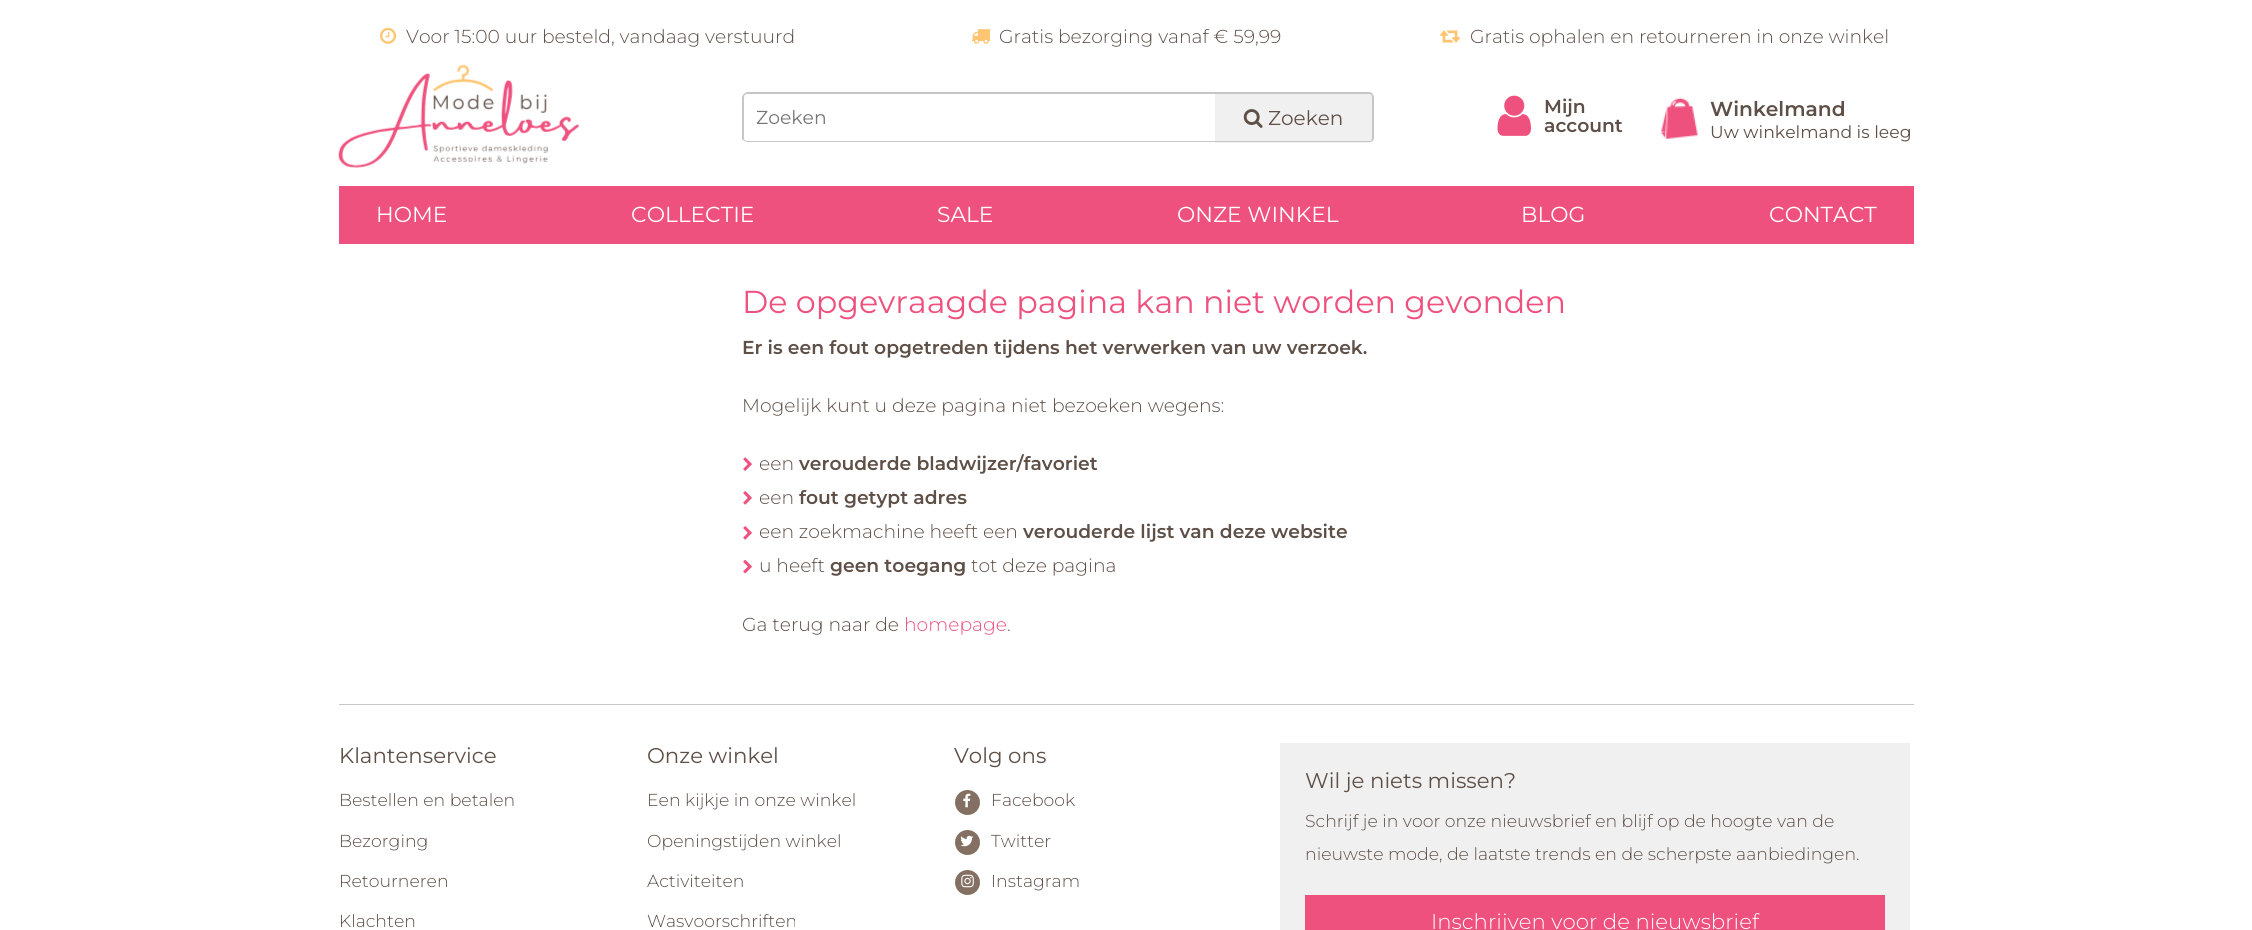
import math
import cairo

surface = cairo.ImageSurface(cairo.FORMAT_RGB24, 2252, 930)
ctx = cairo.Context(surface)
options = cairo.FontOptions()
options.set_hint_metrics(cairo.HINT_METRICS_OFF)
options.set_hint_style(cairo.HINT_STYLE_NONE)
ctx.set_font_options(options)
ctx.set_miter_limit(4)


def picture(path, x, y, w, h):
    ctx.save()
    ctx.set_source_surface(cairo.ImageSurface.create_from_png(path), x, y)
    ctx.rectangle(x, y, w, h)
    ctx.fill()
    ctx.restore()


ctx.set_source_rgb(1, 1, 1)
ctx.paint()
picture("img1.png", 380, 27, 17, 17)
ctx.select_font_face("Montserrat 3 Thin")
ctx.set_font_size(18.75)
ctx.set_source_rgb(0.369, 0.31, 0.278)
ctx.move_to(406, 43)
ctx.show_text("Voor 15:00 uur besteld, vandaag verstuurd")
picture("img2.png", 972, 29, 18, 15)
ctx.move_to(999, 43)
ctx.show_text("Gratis bezorging vanaf € 59,99")
picture("img3.png", 1440, 30, 20, 13)
ctx.move_to(1470, 43)
ctx.show_text("Gratis ophalen en retourneren in onze winkel")
picture("img4.png", 338, 64, 241, 104)
ctx.set_source_rgb(0.776, 0.776, 0.773)
ctx.set_fill_rule(cairo.FILL_RULE_EVEN_ODD)
ctx.new_path()
ctx.move_to(748, 92)
ctx.line_to(1215, 92)
ctx.line_to(1215, 142)
ctx.line_to(748, 142)
ctx.curve_to(745, 142, 742, 140, 742, 138)
ctx.line_to(742, 98)
ctx.curve_to(742, 95, 745, 92, 748, 92)
ctx.close_path()
ctx.move_to(748, 94)
ctx.line_to(1215, 94)
ctx.line_to(1215, 141)
ctx.line_to(748, 141)
ctx.curve_to(745, 141, 744, 140, 744, 138)
ctx.line_to(744, 98)
ctx.curve_to(744, 95, 745, 94, 748, 94)
ctx.close_path()
ctx.fill()
ctx.select_font_face("Montserrat Thin")
ctx.set_source_rgb(0.459, 0.459, 0.459)
ctx.move_to(756, 124)
ctx.show_text("Zoeken")
ctx.set_source_rgb(0.941, 0.941, 0.941)
ctx.new_path()
ctx.move_to(1215, 93)
ctx.line_to(1369, 93)
ctx.curve_to(1372, 93, 1374, 95, 1374, 98)
ctx.line_to(1374, 138)
ctx.curve_to(1374, 141, 1372, 143, 1369, 143)
ctx.line_to(1215, 143)
ctx.close_path()
ctx.fill()
ctx.set_source_rgb(0.776, 0.776, 0.773)
ctx.new_path()
ctx.move_to(1215, 92)
ctx.line_to(1369, 92)
ctx.curve_to(1372, 92, 1374, 95, 1374, 98)
ctx.line_to(1374, 138)
ctx.curve_to(1374, 140, 1372, 142, 1369, 142)
ctx.line_to(1215, 142)
ctx.close_path()
ctx.move_to(1215, 94)
ctx.line_to(1369, 94)
ctx.curve_to(1371, 94, 1372, 95, 1372, 98)
ctx.line_to(1372, 138)
ctx.curve_to(1372, 140, 1371, 141, 1369, 141)
ctx.line_to(1215, 141)
ctx.close_path()
ctx.fill()
picture("img5.png", 1243, 109, 20, 19)
ctx.set_font_size(20)
ctx.set_source_rgb(0.369, 0.31, 0.278)
ctx.move_to(1268, 125)
ctx.show_text("Zoeken")
picture("img6.png", 1497, 95, 34, 41)
ctx.select_font_face("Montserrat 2 Thin")
ctx.set_font_size(18.75)
ctx.move_to(1544, 113)
ctx.show_text("Mijn")
ctx.move_to(1544, 132)
ctx.show_text("account")
picture("img7.png", 1661, 98, 37, 41)
ctx.set_font_size(20.25)
ctx.move_to(1710, 116)
ctx.show_text("Winkelmand")
ctx.select_font_face("Montserrat Thin")
ctx.set_font_size(17.25)
ctx.move_to(1710, 138)
ctx.show_text("Uw winkelmand is leeg")
ctx.set_source_rgb(0.937, 0.318, 0.494)
ctx.rectangle(339, 186, 1575, 58)
ctx.fill()
ctx.set_font_size(21.75)
ctx.set_source_rgb(1, 1, 1)
ctx.move_to(376, 222)
ctx.show_text("HOME")
ctx.move_to(631, 222)
ctx.show_text("COLLECTIE")
ctx.move_to(937, 222)
ctx.show_text("SALE")
ctx.move_to(1177, 222)
ctx.show_text("ONZE WINKEL")
ctx.move_to(1521, 222)
ctx.show_text("BLOG")
ctx.move_to(1769, 222)
ctx.show_text("CONTACT")
ctx.set_font_size(31.75)
ctx.set_source_rgb(0.937, 0.318, 0.494)
ctx.move_to(742, 313)
ctx.show_text("De opgevraagde pagina kan niet worden gevonden")
ctx.select_font_face("Montserrat 2 Thin")
ctx.set_font_size(18.75)
ctx.set_source_rgb(0.369, 0.31, 0.278)
ctx.move_to(742, 354)
ctx.show_text("Er is een fout opgetreden tijdens het verwerken van uw verzoek.")
ctx.select_font_face("Montserrat 3 Thin")
ctx.move_to(742, 412)
ctx.show_text("Mogelijk kunt u deze pagina niet bezoeken wegens:")
picture("img8.png", 743, 457, 9, 14)
ctx.move_to(759, 470)
ctx.show_text("een")
ctx.select_font_face("Montserrat 2 Thin")
ctx.move_to(799, 470)
ctx.show_text("verouderde bladwijzer/favoriet")
picture("img9.png", 743, 491, 9, 14)
ctx.select_font_face("Montserrat 3 Thin")
ctx.move_to(759, 504)
ctx.show_text("een")
ctx.select_font_face("Montserrat 2 Thin")
ctx.move_to(799, 504)
ctx.show_text("fout getypt adres")
picture("img9.png", 743, 526, 9, 14)
ctx.select_font_face("Montserrat 3 Thin")
ctx.move_to(759, 538)
ctx.show_text("een zoekmachine heeft een")
ctx.select_font_face("Montserrat 2 Thin")
ctx.move_to(1023, 538)
ctx.show_text("verouderde lijst van deze website")
picture("img10.png", 743, 559, 9, 15)
ctx.select_font_face("Montserrat 3 Thin")
ctx.move_to(759, 572)
ctx.show_text("u heeft")
ctx.select_font_face("Montserrat 2 Thin")
ctx.move_to(830, 572)
ctx.show_text("geen toegang")
ctx.select_font_face("Montserrat 3 Thin")
ctx.move_to(971, 572)
ctx.show_text("tot deze pagina")
ctx.move_to(742, 631)
ctx.show_text("Ga terug naar de")
ctx.set_source_rgb(0.937, 0.318, 0.494)
ctx.move_to(904, 631)
ctx.show_text("homepage")
ctx.set_source_rgb(0.369, 0.31, 0.278)
ctx.move_to(1007, 631)
ctx.show_text(".")
ctx.set_source_rgb(0.776, 0.776, 0.773)
ctx.rectangle(339, 704, 1575, 1)
ctx.fill()
ctx.select_font_face("Montserrat Thin")
ctx.set_font_size(21.3)
ctx.set_source_rgb(0.369, 0.31, 0.278)
ctx.move_to(339, 763)
ctx.show_text("Klantenservice")
ctx.select_font_face("Montserrat 3 Thin")
ctx.set_font_size(17.3)
ctx.move_to(339, 806)
ctx.show_text("Bestellen en betalen")
ctx.move_to(339, 847)
ctx.show_text("Bezorging")
ctx.move_to(339, 887)
ctx.show_text("Retourneren")
ctx.move_to(339, 927)
ctx.show_text("Klachten")
ctx.select_font_face("Montserrat Thin")
ctx.set_font_size(21.3)
ctx.move_to(647, 763)
ctx.show_text("Onze winkel")
ctx.select_font_face("Montserrat 3 Thin")
ctx.set_font_size(17.3)
ctx.move_to(647, 806)
ctx.show_text("Een kijkje in onze winkel")
ctx.move_to(647, 847)
ctx.show_text("Openingstijden winkel")
ctx.move_to(647, 887)
ctx.show_text("Activiteiten")
ctx.move_to(647, 927)
ctx.show_text("Wasvoorschriften")
ctx.select_font_face("Montserrat Thin")
ctx.set_font_size(21.3)
ctx.move_to(954, 763)
ctx.show_text("Volg ons")
ctx.set_source_rgb(0.518, 0.435, 0.388)
ctx.new_path()
ctx.arc(967.5, 802.5, 12.5, 0, 2 * math.pi)
ctx.fill()
picture("img11.png", 963, 793, 8, 15)
ctx.select_font_face("Montserrat 3 Thin")
ctx.set_font_size(17.3)
ctx.set_source_rgb(0.369, 0.31, 0.278)
ctx.move_to(991, 806)
ctx.show_text("Facebook")
ctx.set_source_rgb(0.518, 0.435, 0.388)
ctx.new_path()
ctx.arc(967.5, 842.5, 12.5, 0, 2 * math.pi)
ctx.fill()
picture("img12.png", 960, 835, 14, 12)
ctx.set_source_rgb(0.369, 0.31, 0.278)
ctx.move_to(991, 847)
ctx.show_text("Twitter")
ctx.set_source_rgb(0.518, 0.435, 0.388)
ctx.new_path()
ctx.arc(967.5, 882.5, 12.5, 0, 2 * math.pi)
ctx.fill()
picture("img13.png", 961, 874, 13, 14)
ctx.set_source_rgb(0.369, 0.31, 0.278)
ctx.move_to(991, 887)
ctx.show_text("Instagram")
ctx.set_source_rgb(0.941, 0.941, 0.941)
ctx.rectangle(1280, 743, 630, 187)
ctx.fill()
ctx.select_font_face("Montserrat Thin")
ctx.set_font_size(21.3)
ctx.set_source_rgb(0.369, 0.31, 0.278)
ctx.move_to(1305, 788)
ctx.show_text("Wil je niets missen?")
ctx.select_font_face("Montserrat 3 Thin")
ctx.set_font_size(17.3)
ctx.move_to(1305, 827)
ctx.show_text("Schrijf je in voor onze nieuwsbrief en blijf op de hoogte van de")
ctx.move_to(1305, 860)
ctx.show_text("nieuwste mode, de laatste trends en de scherpste aanbiedingen.")
ctx.set_source_rgb(0.937, 0.318, 0.494)
ctx.rectangle(1305, 895, 580, 35)
ctx.fill()
ctx.set_font_size(21.3)
ctx.set_source_rgb(1, 1, 1)
ctx.move_to(1431, 929)
ctx.show_text("Inschrijven voor de nieuwsbrief")
surface.write_to_png("page.png")
